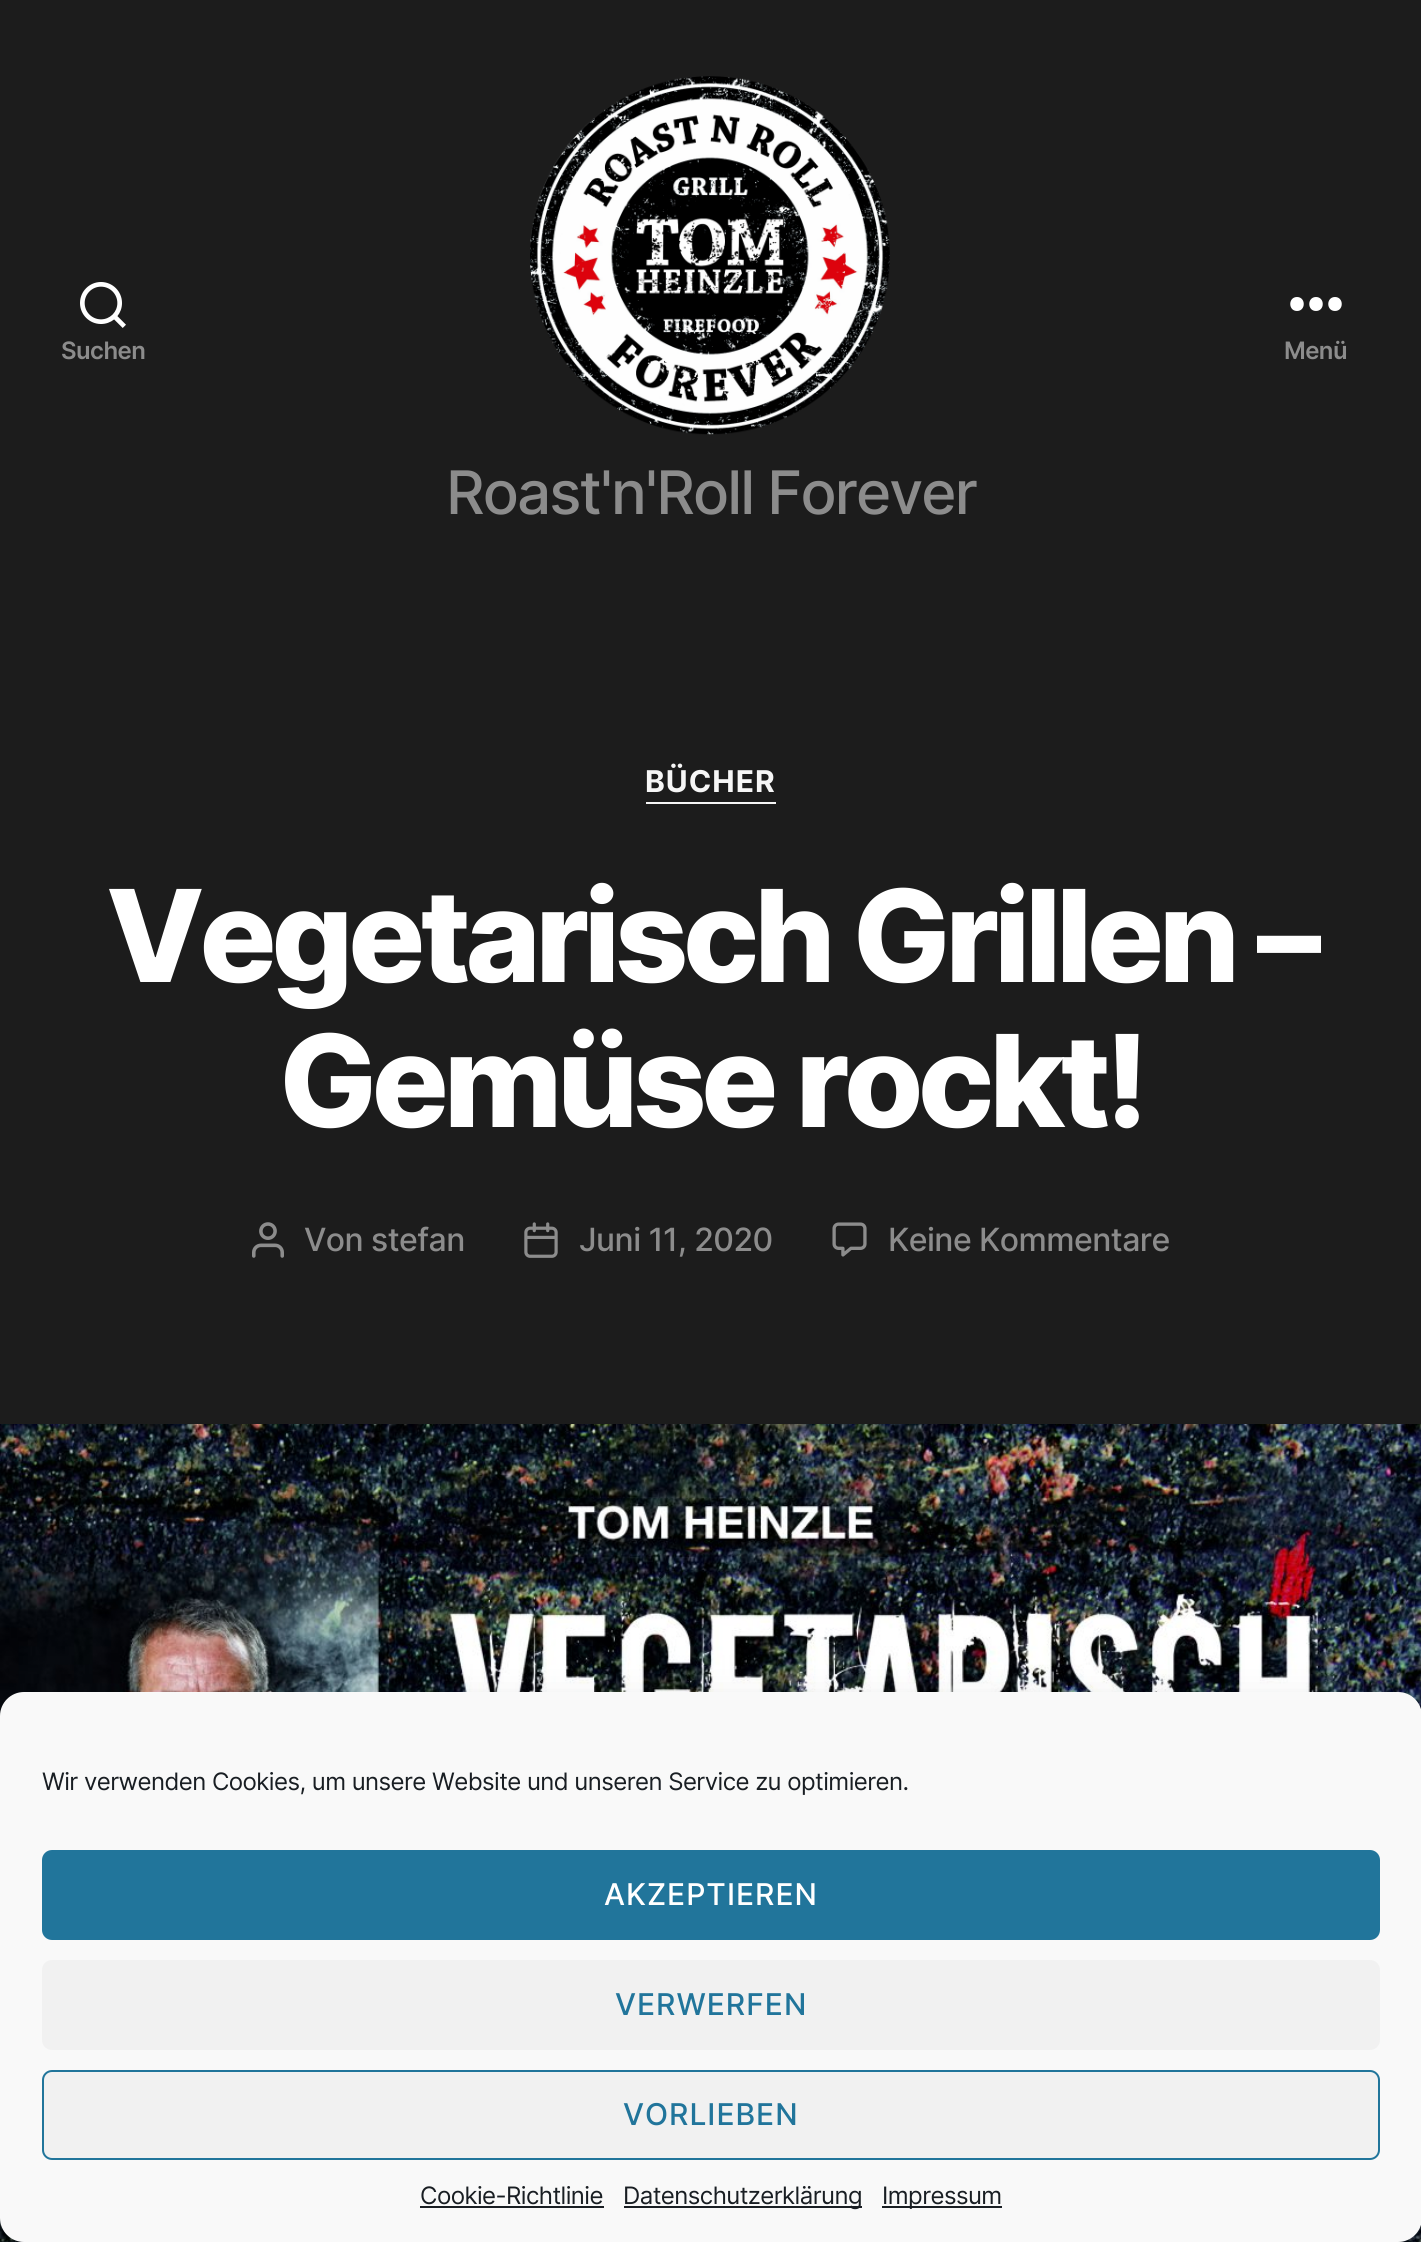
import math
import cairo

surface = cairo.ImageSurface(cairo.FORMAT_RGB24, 1421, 2242)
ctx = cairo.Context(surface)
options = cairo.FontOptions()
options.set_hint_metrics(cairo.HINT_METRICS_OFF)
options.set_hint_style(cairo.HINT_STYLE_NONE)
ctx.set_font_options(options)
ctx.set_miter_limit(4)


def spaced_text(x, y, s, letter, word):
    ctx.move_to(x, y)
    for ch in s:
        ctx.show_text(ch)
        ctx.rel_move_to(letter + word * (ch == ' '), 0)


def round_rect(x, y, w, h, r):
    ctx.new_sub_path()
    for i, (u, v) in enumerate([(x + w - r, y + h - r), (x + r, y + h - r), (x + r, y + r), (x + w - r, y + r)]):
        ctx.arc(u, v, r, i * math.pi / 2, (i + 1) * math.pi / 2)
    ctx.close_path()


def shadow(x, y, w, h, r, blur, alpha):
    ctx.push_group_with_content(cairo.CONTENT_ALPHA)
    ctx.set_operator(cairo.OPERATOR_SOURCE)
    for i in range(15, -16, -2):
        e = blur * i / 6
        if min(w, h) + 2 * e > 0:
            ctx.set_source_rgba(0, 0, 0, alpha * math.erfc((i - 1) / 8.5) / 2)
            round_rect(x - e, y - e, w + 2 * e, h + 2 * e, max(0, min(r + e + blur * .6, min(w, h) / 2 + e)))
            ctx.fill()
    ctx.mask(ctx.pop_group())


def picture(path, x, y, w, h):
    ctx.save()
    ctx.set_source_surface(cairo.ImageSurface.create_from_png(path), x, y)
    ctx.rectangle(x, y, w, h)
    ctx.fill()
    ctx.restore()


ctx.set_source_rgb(0.11, 0.11, 0.11)
ctx.paint()
picture("img1.png", 80, 282, 46, 46)
ctx.select_font_face("Inter SemiBold")
ctx.set_font_size(24)
ctx.set_source_rgb(0.549, 0.549, 0.549)
spaced_text(61, 359, "Suchen", -0.55, 0)
ctx.set_source_rgb(1, 1, 1)
ctx.set_fill_rule(cairo.FILL_RULE_EVEN_ODD)
ctx.new_path()
ctx.move_to(1297, 311)
ctx.curve_to(1288, 311, 1288, 297, 1297, 297)
ctx.curve_to(1306, 297, 1306, 311, 1297, 311)
ctx.close_path()
ctx.move_to(1316, 311)
ctx.curve_to(1307, 311, 1307, 297, 1316, 297)
ctx.curve_to(1325, 297, 1325, 311, 1316, 311)
ctx.close_path()
ctx.move_to(1335, 311)
ctx.curve_to(1326, 311, 1326, 297, 1335, 297)
ctx.curve_to(1344, 297, 1344, 311, 1335, 311)
ctx.close_path()
ctx.fill()
ctx.set_source_rgb(0.549, 0.549, 0.549)
spaced_text(1284, 359, "Menü", -0.55, 0)
picture("img2.png", 530, 76, 360, 359)
ctx.select_font_face("Inter Medium")
ctx.set_font_size(60)
spaced_text(446, 514, "Roast'n'Roll Forever", -1.9, 0)
ctx.set_source_rgb(0.961, 0.961, 0.961)
ctx.rectangle(646, 802, 130, 2)
ctx.fill()
ctx.select_font_face("Inter", cairo.FONT_SLANT_NORMAL, cairo.FONT_WEIGHT_BOLD)
ctx.set_font_size(30)
spaced_text(645, 792, "BÜCHER", 1, 0)
ctx.select_font_face("Inter ExtraBold")
ctx.set_font_size(128)
ctx.set_source_rgb(1, 1, 1)
spaced_text(106, 982, "Vegetarisch Grillen –", -5.3, 0)
spaced_text(279, 1127, "Gemüse rockt!", -5.3, 0)
picture("img3.png", 252, 1222, 32, 36)
ctx.select_font_face("Inter Medium")
ctx.set_font_size(32)
ctx.set_source_rgb(0.549, 0.549, 0.549)
spaced_text(304, 1251, "Von stefan", -0.55, 0)
picture("img4.png", 524, 1222, 34, 36)
spaced_text(579, 1251, "Juni 11, 2020", -0.55, 0)
picture("img5.png", 832, 1222, 35, 35)
spaced_text(888, 1251, "Keine Kommentare", -0.55, 0)
picture("img6.png", 0, 1424, 1421, 818)
ctx.set_source_rgb(0, 0, 0)
shadow(0, 1704, 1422, 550, 24, 6, 0.23)
shadow(0, 1712, 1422, 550, 24, 20, 0.19)
ctx.set_source_rgb(0.976, 0.976, 0.976)
round_rect(1, 1693, 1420, 548, 23)
ctx.fill_preserve()
ctx.stroke()
ctx.select_font_face("Inter")
ctx.set_font_size(24)
ctx.set_source_rgb(0.098, 0.118, 0.137)
spaced_text(42, 1790, "Wir verwenden Cookies, um unsere Website und unseren Service zu optimieren.", -0.55, 0)
ctx.set_source_rgb(0.129, 0.459, 0.608)
round_rect(43, 1851, 1336, 88, 9)
ctx.fill_preserve()
ctx.stroke()
ctx.select_font_face("Inter Medium")
ctx.set_font_size(30)
ctx.set_source_rgb(1, 1, 1)
spaced_text(604, 1905, "AKZEPTIEREN", 1, 0)
ctx.set_source_rgb(0.945, 0.945, 0.945)
round_rect(42, 1960, 1338, 90, 10)
ctx.fill()
ctx.set_source_rgb(0.129, 0.459, 0.608)
spaced_text(615, 2015, "VERWERFEN", 1, 0)
ctx.set_source_rgb(0.945, 0.945, 0.945)
round_rect(43, 2071, 1336, 88, 9)
ctx.fill_preserve()
ctx.set_source_rgb(0.129, 0.459, 0.608)
ctx.stroke()
spaced_text(623, 2125, "VORLIEBEN", 1, 0)
ctx.select_font_face("Inter")
ctx.set_font_size(24)
ctx.set_source_rgb(0.098, 0.118, 0.137)
spaced_text(420, 2204, "Cookie-Richtlinie", -0.55, 0)
ctx.rectangle(420, 2206, 184, 2)
ctx.fill()
ctx.rectangle(624, 2206, 238, 2)
ctx.fill()
spaced_text(623, 2204, "Datenschutzerklärung", -0.55, 0)
ctx.rectangle(882, 2206, 120, 2)
ctx.fill()
spaced_text(882, 2204, "Impressum", -0.55, 0)
surface.write_to_png("page.png")
